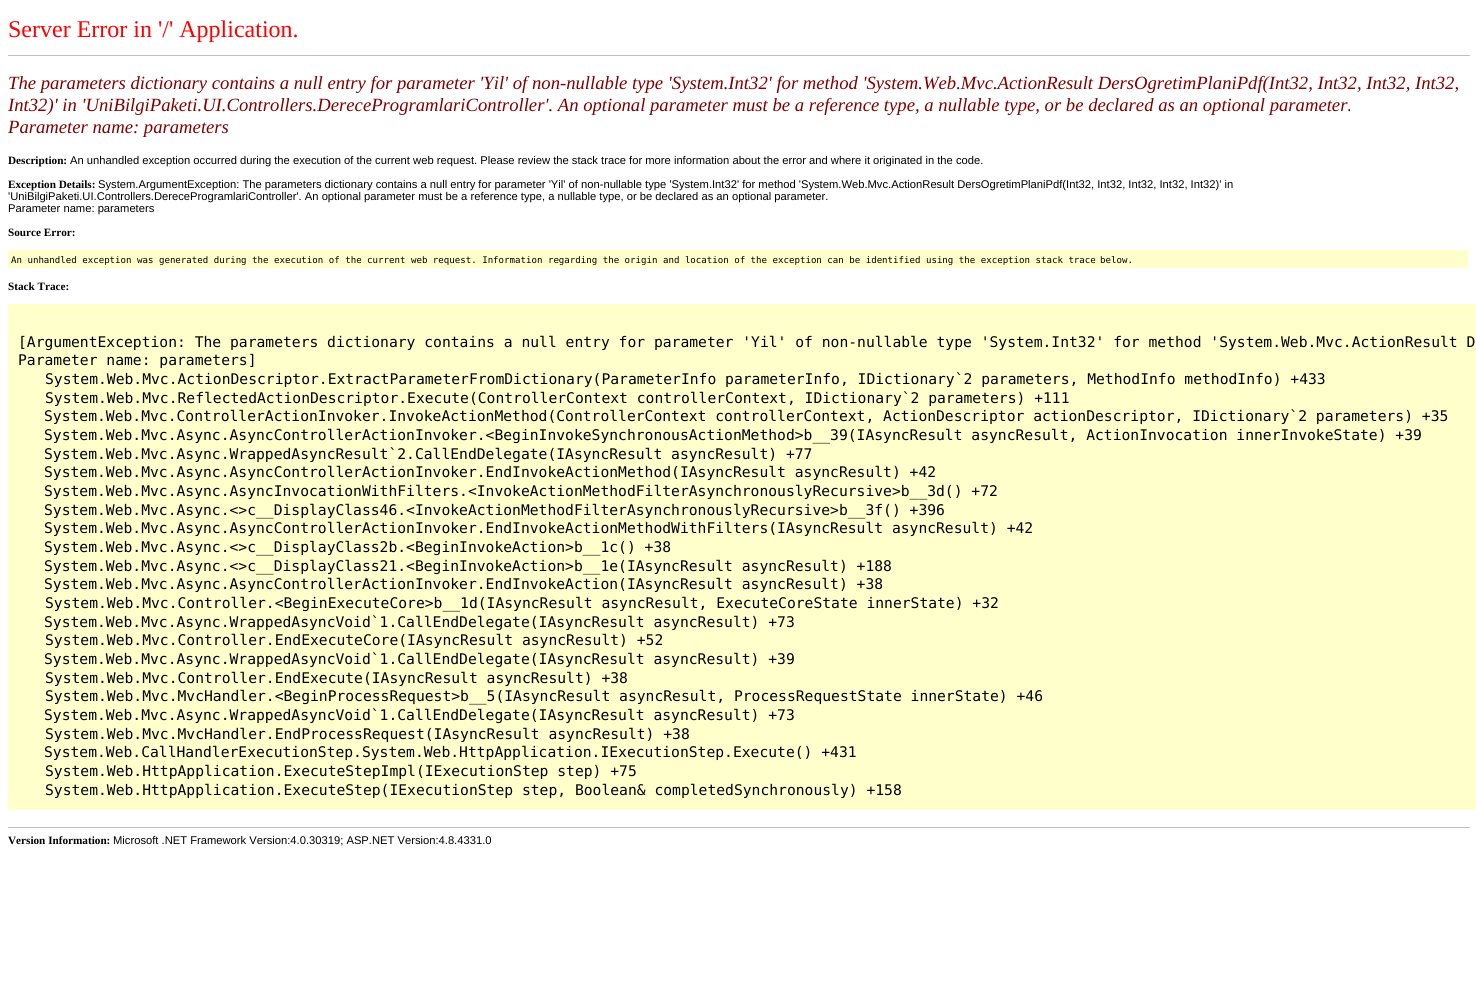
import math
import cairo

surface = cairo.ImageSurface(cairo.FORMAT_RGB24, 1476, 1005)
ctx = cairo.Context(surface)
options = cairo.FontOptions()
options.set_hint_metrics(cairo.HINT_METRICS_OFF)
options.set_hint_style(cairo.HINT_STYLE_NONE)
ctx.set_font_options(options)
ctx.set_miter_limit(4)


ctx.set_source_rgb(1, 1, 1)
ctx.paint()
ctx.select_font_face("Liberation Serif")
ctx.set_font_size(24)
ctx.set_source_rgb(1, 0, 0)
ctx.move_to(8, 37)
ctx.show_text("Server Error in '/' Application.")
ctx.set_source_rgb(0.753, 0.753, 0.753)
ctx.rectangle(8, 55, 1462, 1)
ctx.fill()
ctx.select_font_face("Liberation Serif", cairo.FONT_SLANT_ITALIC)
ctx.set_font_size(18.67)
ctx.set_source_rgb(0.502, 0, 0)
ctx.move_to(8, 89)
ctx.show_text("The parameters dictionary contains a null entry for parameter 'Yil' of non-nullable type 'System.Int32' for method 'System.Web.Mvc.ActionResult DersOgretimPlaniPdf(Int32, Int32, Int32, Int32,")
ctx.move_to(8, 111)
ctx.show_text("Int32)' in 'UniBilgiPaketi.UI.Controllers.DereceProgramlariController'. An optional parameter must be a reference type, a nullable type, or be declared as an optional parameter.")
ctx.move_to(8, 133)
ctx.show_text("Parameter name: parameters")
ctx.select_font_face("Liberation Serif", cairo.FONT_SLANT_NORMAL, cairo.FONT_WEIGHT_BOLD)
ctx.set_font_size(11.2)
ctx.set_source_rgb(0, 0, 0)
ctx.move_to(8, 164)
ctx.show_text("Description:")
ctx.select_font_face("Liberation Sans")
ctx.move_to(70, 164)
ctx.show_text("An unhandled exception occurred during the execution of the current web request. Please review the stack trace for more information about the error and where it originated in the code.")
ctx.select_font_face("Liberation Serif", cairo.FONT_SLANT_NORMAL, cairo.FONT_WEIGHT_BOLD)
ctx.move_to(8, 188)
ctx.show_text("Exception Details:")
ctx.select_font_face("Liberation Sans")
ctx.move_to(98, 188)
ctx.show_text("System.ArgumentException: The parameters dictionary contains a null entry for parameter 'Yil' of non-nullable type 'System.Int32' for method 'System.Web.Mvc.ActionResult DersOgretimPlaniPdf(Int32, Int32, Int32, Int32, Int32)' in")
ctx.move_to(8, 200)
ctx.show_text("'UniBilgiPaketi.UI.Controllers.DereceProgramlariController'. An optional parameter must be a reference type, a nullable type, or be declared as an optional parameter.")
ctx.move_to(8, 212)
ctx.show_text("Parameter name: parameters")
ctx.select_font_face("Liberation Serif", cairo.FONT_SLANT_NORMAL, cairo.FONT_WEIGHT_BOLD)
ctx.move_to(8, 236)
ctx.show_text("Source Error:")
ctx.set_source_rgb(1, 1, 0.8)
ctx.rectangle(8, 250, 1460, 18)
ctx.fill()
ctx.select_font_face("DejaVu Sans Mono")
ctx.set_font_size(9.1)
ctx.set_source_rgb(0, 0, 0)
ctx.move_to(11, 263)
ctx.show_text("An unhandled exception was generated during the execution of the current web request. Information regarding the origin and location of the exception can be identified using the exception stack trace")
ctx.move_to(1100, 263)
ctx.show_text("below.")
ctx.select_font_face("Liberation Serif", cairo.FONT_SLANT_NORMAL, cairo.FONT_WEIGHT_BOLD)
ctx.set_font_size(11.2)
ctx.move_to(8, 290)
ctx.show_text("Stack Trace:")
ctx.set_source_rgb(1, 1, 0.8)
ctx.rectangle(8, 304, 1468, 506)
ctx.fill()
ctx.select_font_face("DejaVu Sans Mono")
ctx.set_font_size(14.67)
ctx.set_source_rgb(0, 0, 0)
ctx.move_to(18, 347)
ctx.show_text("[ArgumentException: The parameters dictionary contains a null entry for parameter 'Yil' of non-nullable type 'System.Int32' for method 'System.Web.Mvc.ActionResult D")
ctx.move_to(18, 365)
ctx.show_text("Parameter name: parameters]")
ctx.move_to(45, 384)
ctx.show_text("System.Web.Mvc.ActionDescriptor.ExtractParameterFromDictionary(ParameterInfo parameterInfo, IDictionary`2 parameters, MethodInfo methodInfo) +433")
ctx.move_to(45, 403)
ctx.show_text("System.Web.Mvc.ReflectedActionDescriptor.Execute(ControllerContext controllerContext, IDictionary`2 parameters) +111")
ctx.move_to(44, 421)
ctx.show_text("System.Web.Mvc.ControllerActionInvoker.InvokeActionMethod(ControllerContext controllerContext, ActionDescriptor actionDescriptor, IDictionary`2 parameters) +35")
ctx.move_to(44, 440)
ctx.show_text("System.Web.Mvc.Async.AsyncControllerActionInvoker.<BeginInvokeSynchronousActionMethod>b__39(IAsyncResult asyncResult, ActionInvocation innerInvokeState) +39")
ctx.move_to(44, 459)
ctx.show_text("System.Web.Mvc.Async.WrappedAsyncResult`2.CallEndDelegate(IAsyncResult asyncResult) +77")
ctx.move_to(44, 477)
ctx.show_text("System.Web.Mvc.Async.AsyncControllerActionInvoker.EndInvokeActionMethod(IAsyncResult asyncResult) +42")
ctx.move_to(44, 496)
ctx.show_text("System.Web.Mvc.Async.AsyncInvocationWithFilters.<InvokeActionMethodFilterAsynchronouslyRecursive>b__3d() +72")
ctx.move_to(44, 515)
ctx.show_text("System.Web.Mvc.Async.<>c__DisplayClass46.<InvokeActionMethodFilterAsynchronouslyRecursive>b__3f() +396")
ctx.move_to(44, 533)
ctx.show_text("System.Web.Mvc.Async.AsyncControllerActionInvoker.EndInvokeActionMethodWithFilters(IAsyncResult asyncResult) +42")
ctx.move_to(44, 552)
ctx.show_text("System.Web.Mvc.Async.<>c__DisplayClass2b.<BeginInvokeAction>b__1c() +38")
ctx.move_to(44, 571)
ctx.show_text("System.Web.Mvc.Async.<>c__DisplayClass21.<BeginInvokeAction>b__1e(IAsyncResult asyncResult) +188")
ctx.move_to(44, 589)
ctx.show_text("System.Web.Mvc.Async.AsyncControllerActionInvoker.EndInvokeAction(IAsyncResult asyncResult) +38")
ctx.move_to(45, 608)
ctx.show_text("System.Web.Mvc.Controller.<BeginExecuteCore>b__1d(IAsyncResult asyncResult, ExecuteCoreState innerState) +32")
ctx.move_to(44, 627)
ctx.show_text("System.Web.Mvc.Async.WrappedAsyncVoid`1.CallEndDelegate(IAsyncResult asyncResult) +73")
ctx.move_to(45, 645)
ctx.show_text("System.Web.Mvc.Controller.EndExecuteCore(IAsyncResult asyncResult) +52")
ctx.move_to(44, 664)
ctx.show_text("System.Web.Mvc.Async.WrappedAsyncVoid`1.CallEndDelegate(IAsyncResult asyncResult) +39")
ctx.move_to(45, 683)
ctx.show_text("System.Web.Mvc.Controller.EndExecute(IAsyncResult asyncResult) +38")
ctx.move_to(45, 701)
ctx.show_text("System.Web.Mvc.MvcHandler.<BeginProcessRequest>b__5(IAsyncResult asyncResult, ProcessRequestState innerState) +46")
ctx.move_to(44, 720)
ctx.show_text("System.Web.Mvc.Async.WrappedAsyncVoid`1.CallEndDelegate(IAsyncResult asyncResult) +73")
ctx.move_to(45, 739)
ctx.show_text("System.Web.Mvc.MvcHandler.EndProcessRequest(IAsyncResult asyncResult) +38")
ctx.move_to(44, 757)
ctx.show_text("System.Web.CallHandlerExecutionStep.System.Web.HttpApplication.IExecutionStep.Execute() +431")
ctx.move_to(45, 776)
ctx.show_text("System.Web.HttpApplication.ExecuteStepImpl(IExecutionStep step) +75")
ctx.move_to(45, 795)
ctx.show_text("System.Web.HttpApplication.ExecuteStep(IExecutionStep step, Boolean& completedSynchronously) +158")
ctx.set_source_rgb(0.753, 0.753, 0.753)
ctx.rectangle(8, 827, 1462, 1)
ctx.fill()
ctx.select_font_face("Liberation Serif", cairo.FONT_SLANT_NORMAL, cairo.FONT_WEIGHT_BOLD)
ctx.set_font_size(11.2)
ctx.set_source_rgb(0, 0, 0)
ctx.move_to(8, 844)
ctx.show_text("Version Information:")
ctx.select_font_face("Liberation Sans")
ctx.move_to(113, 844)
ctx.show_text("Microsoft .NET Framework Version:4.0.30319; ASP.NET Version:4.8.4331.0")
surface.write_to_png("page.png")
